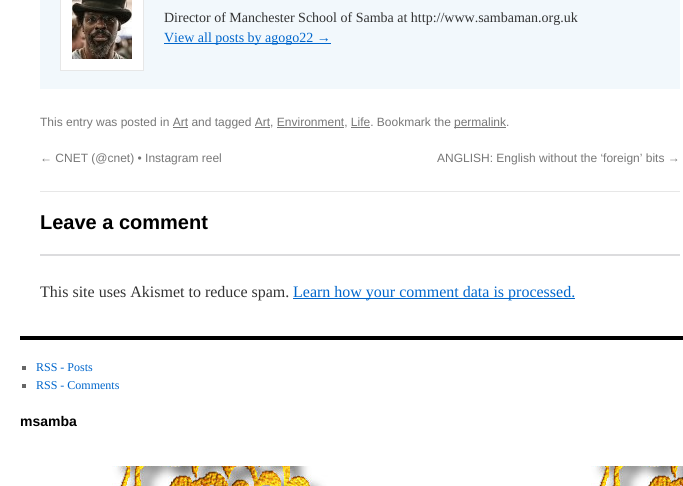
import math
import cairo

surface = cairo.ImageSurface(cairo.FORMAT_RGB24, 683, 486)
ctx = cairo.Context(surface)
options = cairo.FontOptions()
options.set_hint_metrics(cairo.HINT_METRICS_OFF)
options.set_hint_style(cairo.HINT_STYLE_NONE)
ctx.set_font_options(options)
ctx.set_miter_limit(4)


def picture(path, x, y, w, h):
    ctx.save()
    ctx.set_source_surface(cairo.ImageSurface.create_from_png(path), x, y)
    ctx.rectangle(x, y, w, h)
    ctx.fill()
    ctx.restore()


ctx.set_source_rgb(1, 1, 1)
ctx.paint()
picture("img1.png", 0, 466, 683, 20)
ctx.set_source_rgb(0.949, 0.969, 0.988)
ctx.rectangle(40, 0, 640, 89)
ctx.fill()
ctx.set_source_rgb(1, 1, 1)
ctx.rectangle(60.5, -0.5, 83, 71)
ctx.fill_preserve()
ctx.set_source_rgb(0.906, 0.906, 0.906)
ctx.set_line_width(1)
ctx.stroke()
picture("img2.png", 72, 0, 60, 59)
ctx.select_font_face("Liberation Serif")
ctx.set_font_size(14)
ctx.set_source_rgb(0.2, 0.2, 0.2)
ctx.move_to(164, 22)
ctx.show_text("Director of Manchester School of Samba at http://www.sambaman.org.uk")
ctx.set_source_rgb(0, 0.4, 0.8)
ctx.rectangle(164, 43, 167, 1)
ctx.fill()
ctx.move_to(164, 42)
ctx.show_text("View all posts by agogo22 →")
ctx.select_font_face("Liberation Sans")
ctx.set_font_size(12)
ctx.set_source_rgb(0.467, 0.467, 0.467)
ctx.move_to(40, 126)
ctx.show_text("This entry was posted in Art and tagged Art, Environment, Life. Bookmark the")
ctx.rectangle(454, 127, 52, 1)
ctx.fill()
ctx.move_to(454, 126)
ctx.show_text("permalink.")
ctx.rectangle(173, 127, 15, 1)
ctx.fill()
ctx.rectangle(255, 127, 15, 1)
ctx.fill()
ctx.rectangle(277, 127, 67, 1)
ctx.fill()
ctx.rectangle(351, 127, 19, 1)
ctx.fill()
ctx.move_to(40, 162)
ctx.show_text("← CNET (@cnet) • Instagram reel")
ctx.move_to(437, 162)
ctx.show_text("ANGLISH: English without the ‘foreign’ bits →")
ctx.set_source_rgb(0.906, 0.906, 0.906)
ctx.rectangle(40, 191, 640, 1)
ctx.fill()
ctx.select_font_face("Liberation Sans", cairo.FONT_SLANT_NORMAL, cairo.FONT_WEIGHT_BOLD)
ctx.set_font_size(20)
ctx.set_source_rgb(0, 0, 0)
ctx.move_to(40, 229)
ctx.show_text("Leave a comment")
ctx.set_source_rgb(0.863, 0.863, 0.871)
ctx.rectangle(40, 254, 640, 2)
ctx.fill()
ctx.select_font_face("Liberation Serif")
ctx.set_font_size(16)
ctx.set_source_rgb(0.2, 0.2, 0.2)
ctx.move_to(40, 297)
ctx.show_text("This site uses Akismet to reduce spam.")
ctx.set_source_rgb(0, 0.4, 0.8)
ctx.rectangle(293, 298, 282, 1)
ctx.fill()
ctx.move_to(293, 297)
ctx.show_text("Learn how your comment data is processed.")
ctx.set_source_rgb(0, 0, 0)
ctx.rectangle(20, 336, 663, 4)
ctx.fill()
ctx.set_source_rgb(0.4, 0.4, 0.4)
ctx.rectangle(22, 366, 4, 4)
ctx.fill()
ctx.set_font_size(12)
ctx.set_source_rgb(0, 0.4, 0.8)
ctx.move_to(36, 371)
ctx.show_text("RSS - Posts")
ctx.set_source_rgb(0.4, 0.4, 0.4)
ctx.rectangle(22, 384, 4, 4)
ctx.fill()
ctx.set_source_rgb(0, 0.4, 0.8)
ctx.move_to(36, 389)
ctx.show_text("RSS - Comments")
ctx.select_font_face("Liberation Sans", cairo.FONT_SLANT_NORMAL, cairo.FONT_WEIGHT_BOLD)
ctx.set_font_size(14)
ctx.set_source_rgb(0, 0, 0)
ctx.move_to(20, 426)
ctx.show_text("msamba")
surface.write_to_png("page.png")
